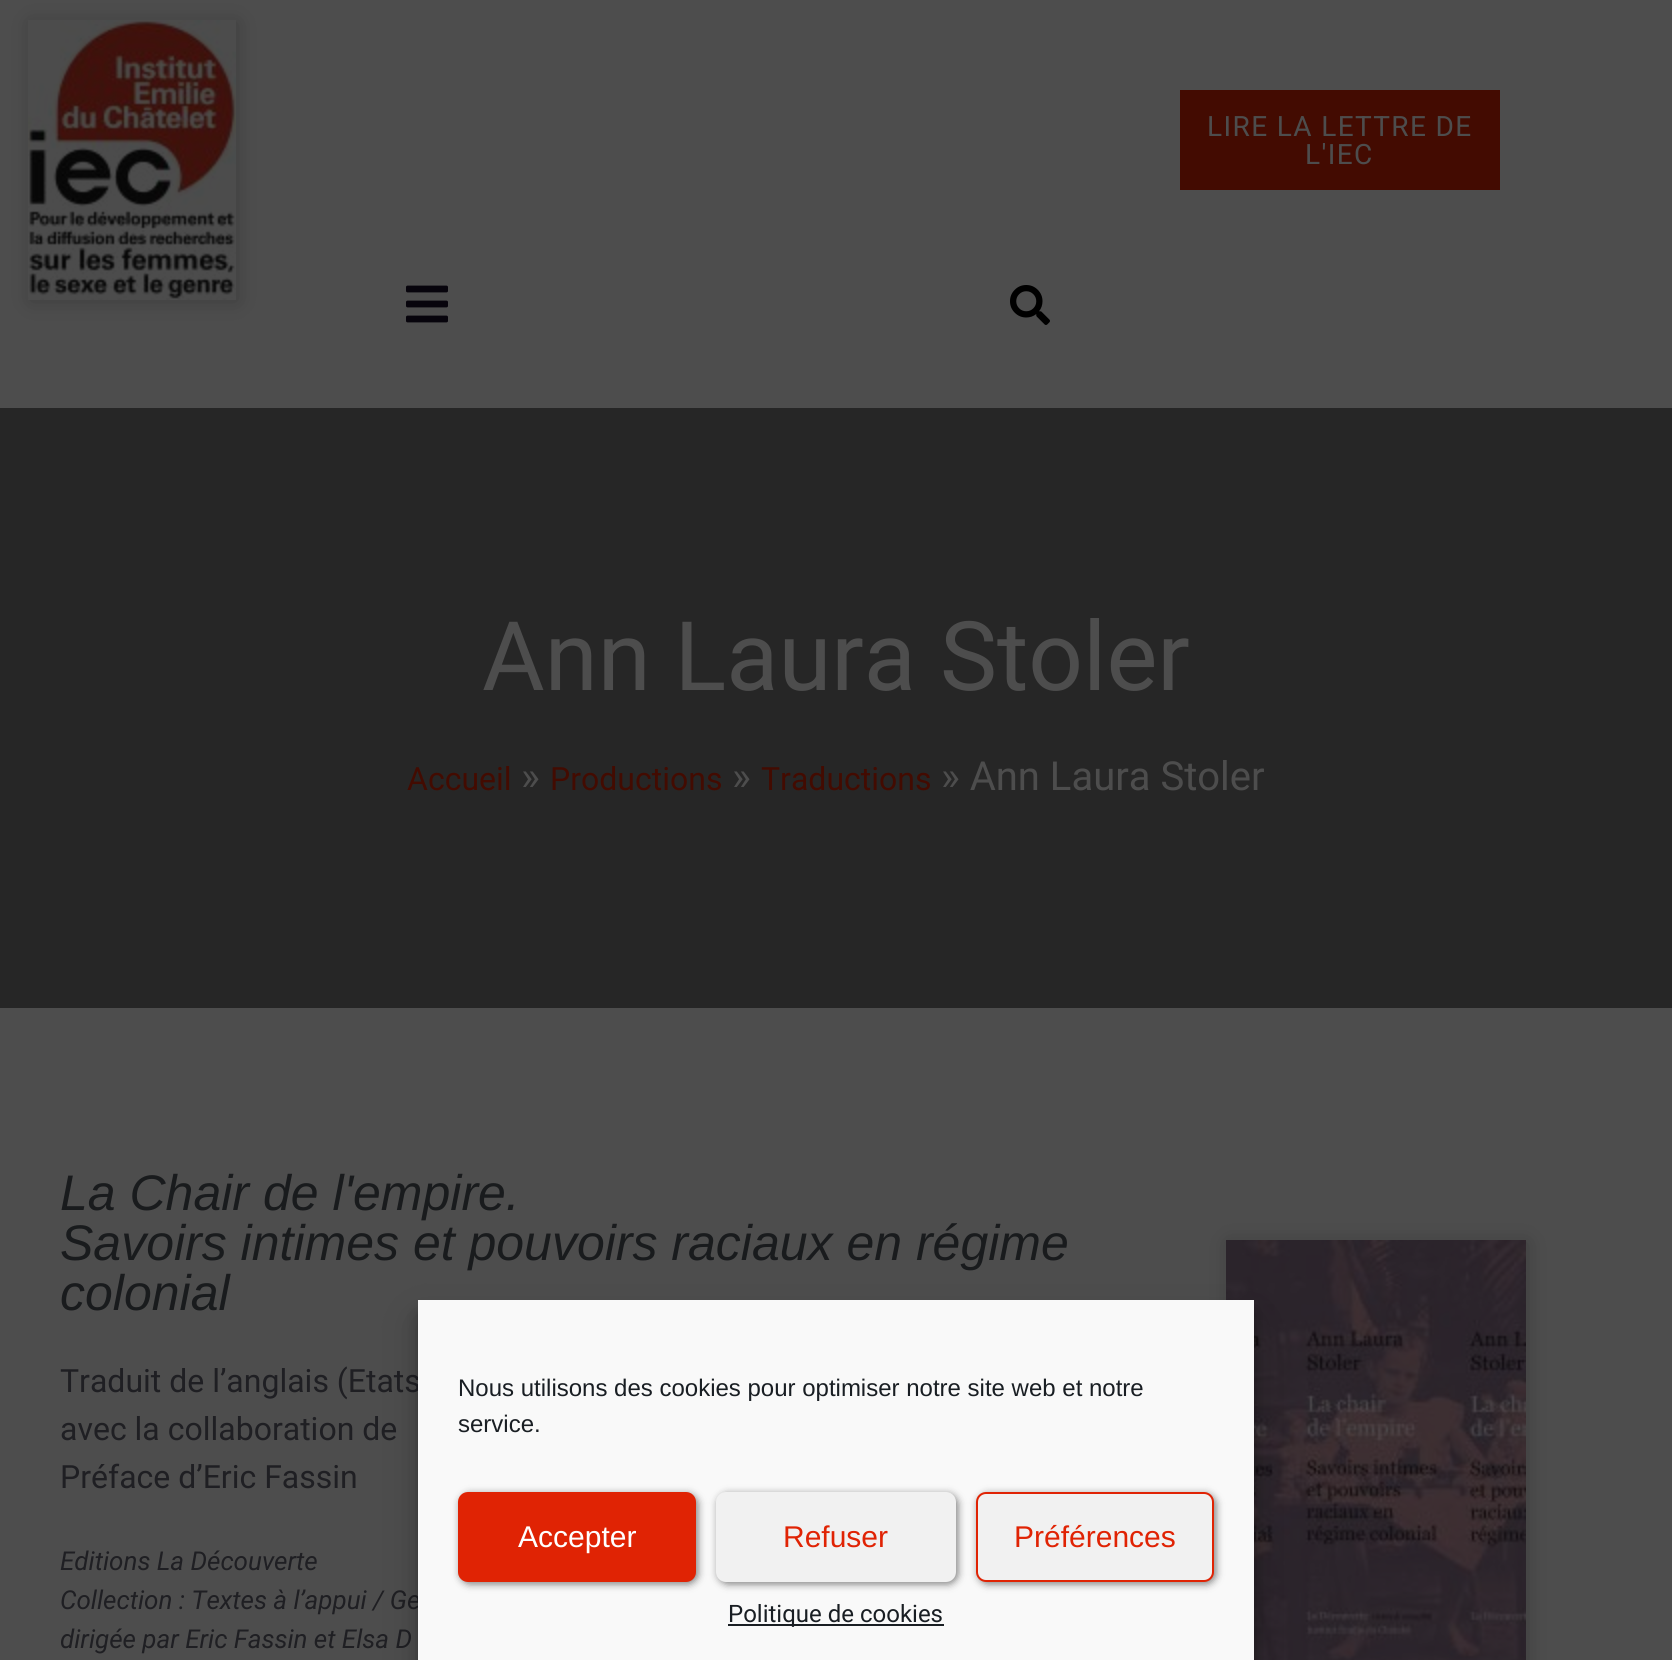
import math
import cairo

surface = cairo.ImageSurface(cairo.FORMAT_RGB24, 1672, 1660)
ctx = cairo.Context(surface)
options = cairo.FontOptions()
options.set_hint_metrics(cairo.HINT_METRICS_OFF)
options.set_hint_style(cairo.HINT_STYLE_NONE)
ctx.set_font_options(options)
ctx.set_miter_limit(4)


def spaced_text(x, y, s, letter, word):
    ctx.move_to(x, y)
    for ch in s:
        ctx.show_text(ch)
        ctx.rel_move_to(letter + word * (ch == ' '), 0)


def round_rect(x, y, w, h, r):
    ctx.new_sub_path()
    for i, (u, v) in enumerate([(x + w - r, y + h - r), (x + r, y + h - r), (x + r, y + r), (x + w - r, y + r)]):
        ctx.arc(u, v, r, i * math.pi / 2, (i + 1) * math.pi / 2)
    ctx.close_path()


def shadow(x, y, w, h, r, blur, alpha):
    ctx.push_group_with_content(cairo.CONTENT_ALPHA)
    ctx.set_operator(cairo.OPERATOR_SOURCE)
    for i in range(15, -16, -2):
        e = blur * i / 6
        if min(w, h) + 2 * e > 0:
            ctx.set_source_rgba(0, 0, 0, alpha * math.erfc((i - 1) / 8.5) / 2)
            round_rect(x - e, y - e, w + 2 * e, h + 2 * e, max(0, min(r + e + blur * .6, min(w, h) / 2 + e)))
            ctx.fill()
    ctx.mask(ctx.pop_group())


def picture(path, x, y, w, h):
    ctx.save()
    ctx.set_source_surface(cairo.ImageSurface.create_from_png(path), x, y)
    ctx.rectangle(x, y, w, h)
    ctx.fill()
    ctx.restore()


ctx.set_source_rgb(0.302, 0.302, 0.302)
ctx.paint()
ctx.set_source_rgb(0, 0, 0)
shadow(30, 22, 208, 280, 0, 10, 0.2)
picture("img1.png", 28, 20, 208, 280)
ctx.set_source_rgb(0.263, 0.043, 0.004)
ctx.rectangle(1180, 90, 320, 100)
ctx.fill()
ctx.select_font_face("Roboto")
ctx.set_font_size(28)
ctx.set_source_rgb(0.302, 0.302, 0.302)
spaced_text(1207, 136, "LIRE LA LETTRE DE", 1.4, 0)
spaced_text(1305, 164, "L'IEC", 1.4, 0)
picture("img2.png", 406, 285, 42, 38)
picture("img3.png", 1010, 285, 40, 40)
ctx.set_source_rgb(0.149, 0.149, 0.149)
ctx.rectangle(0, 408, 1672, 600)
ctx.fill()
ctx.set_font_size(96)
ctx.set_source_rgb(0.302, 0.302, 0.302)
ctx.move_to(482, 690)
ctx.show_text("Ann Laura Stoler")
ctx.set_font_size(32)
ctx.set_source_rgb(0.263, 0.043, 0.004)
ctx.move_to(407, 790)
ctx.show_text("Accueil")
ctx.set_font_size(40)
ctx.set_source_rgb(0.302, 0.302, 0.302)
ctx.move_to(521, 790)
ctx.show_text("»")
ctx.set_font_size(32)
ctx.set_source_rgb(0.263, 0.043, 0.004)
ctx.move_to(550, 790)
ctx.show_text("Productions")
ctx.set_font_size(40)
ctx.set_source_rgb(0.302, 0.302, 0.302)
ctx.move_to(732, 790)
ctx.show_text("»")
ctx.set_font_size(32)
ctx.set_source_rgb(0.263, 0.043, 0.004)
ctx.move_to(761, 790)
ctx.show_text("Traductions")
ctx.set_font_size(40)
ctx.set_source_rgb(0.302, 0.302, 0.302)
ctx.move_to(941, 790)
ctx.show_text("» Ann Laura Stoler")
ctx.select_font_face("Liberation Sans", cairo.FONT_SLANT_ITALIC)
ctx.set_font_size(50)
ctx.set_source_rgb(0.098, 0.106, 0.114)
ctx.move_to(60, 1210)
ctx.show_text("La Chair de l'empire.")
ctx.move_to(60, 1260)
ctx.show_text("Savoirs intimes et pouvoirs raciaux en régime")
ctx.move_to(60, 1310)
ctx.show_text("colonial")
ctx.select_font_face("Roboto")
ctx.set_font_size(32)
ctx.set_source_rgb(0.122, 0.122, 0.137)
ctx.move_to(60, 1392)
ctx.show_text("Traduit de l’anglais (Etats")
ctx.move_to(60, 1440)
ctx.show_text("avec la collaboration de")
ctx.move_to(60, 1488)
ctx.show_text("Préface d’Eric Fassin")
ctx.select_font_face("Roboto", cairo.FONT_SLANT_ITALIC)
ctx.set_font_size(26)
ctx.move_to(60, 1570)
ctx.show_text("Editions La Découverte")
ctx.move_to(60, 1609)
ctx.show_text("Collection : Textes à l’appui / Ge")
ctx.move_to(60, 1648)
ctx.show_text("dirigée par Eric Fassin et Elsa D")
ctx.set_source_rgb(0, 0, 0)
shadow(1228, 1242, 300, 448, 0, 10, 0.2)
picture("img4.png", 1226, 1240, 300, 420)
shadow(418, 1312, 836, 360, 0, 6, 0.23)
shadow(418, 1320, 836, 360, 0, 20, 0.19)
ctx.set_source_rgb(0.976, 0.976, 0.976)
ctx.rectangle(418, 1300, 836, 360)
ctx.fill()
ctx.select_font_face("Liberation Sans")
ctx.set_font_size(24)
ctx.set_source_rgb(0.098, 0.118, 0.137)
ctx.move_to(458, 1396)
ctx.show_text("Nous utilisons des cookies pour optimiser notre site web et notre")
ctx.move_to(458, 1432)
ctx.show_text("service.")
ctx.set_source_rgb(0, 0, 0)
shadow(460, 1494, 238, 90, 10, 4, 0.5)
ctx.set_source_rgb(0.878, 0.137, 0.016)
round_rect(459, 1493, 236, 88, 9)
ctx.fill_preserve()
ctx.stroke()
ctx.set_font_size(30)
ctx.set_source_rgb(1, 1, 1)
ctx.move_to(518, 1547)
ctx.show_text("Accepter")
ctx.set_source_rgb(0, 0, 0)
shadow(718, 1494, 240, 90, 10, 4, 0.5)
ctx.set_source_rgb(0.945, 0.945, 0.945)
round_rect(717, 1493, 238, 88, 9)
ctx.fill_preserve()
ctx.stroke()
ctx.set_source_rgb(0.878, 0.137, 0.016)
ctx.move_to(783, 1547)
ctx.show_text("Refuser")
ctx.set_source_rgb(0, 0, 0)
shadow(978, 1494, 238, 90, 10, 4, 0.5)
ctx.set_source_rgb(0.945, 0.945, 0.945)
round_rect(977, 1493, 236, 88, 9)
ctx.fill_preserve()
ctx.set_source_rgb(0.878, 0.137, 0.016)
ctx.stroke()
ctx.move_to(1014, 1547)
ctx.show_text("Préférences")
ctx.set_source_rgb(0.098, 0.118, 0.137)
ctx.rectangle(728, 1624, 216, 2)
ctx.fill()
ctx.select_font_face("Roboto")
ctx.set_font_size(24)
ctx.move_to(728, 1622)
ctx.show_text("Politique de cookies")
surface.write_to_png("page.png")
